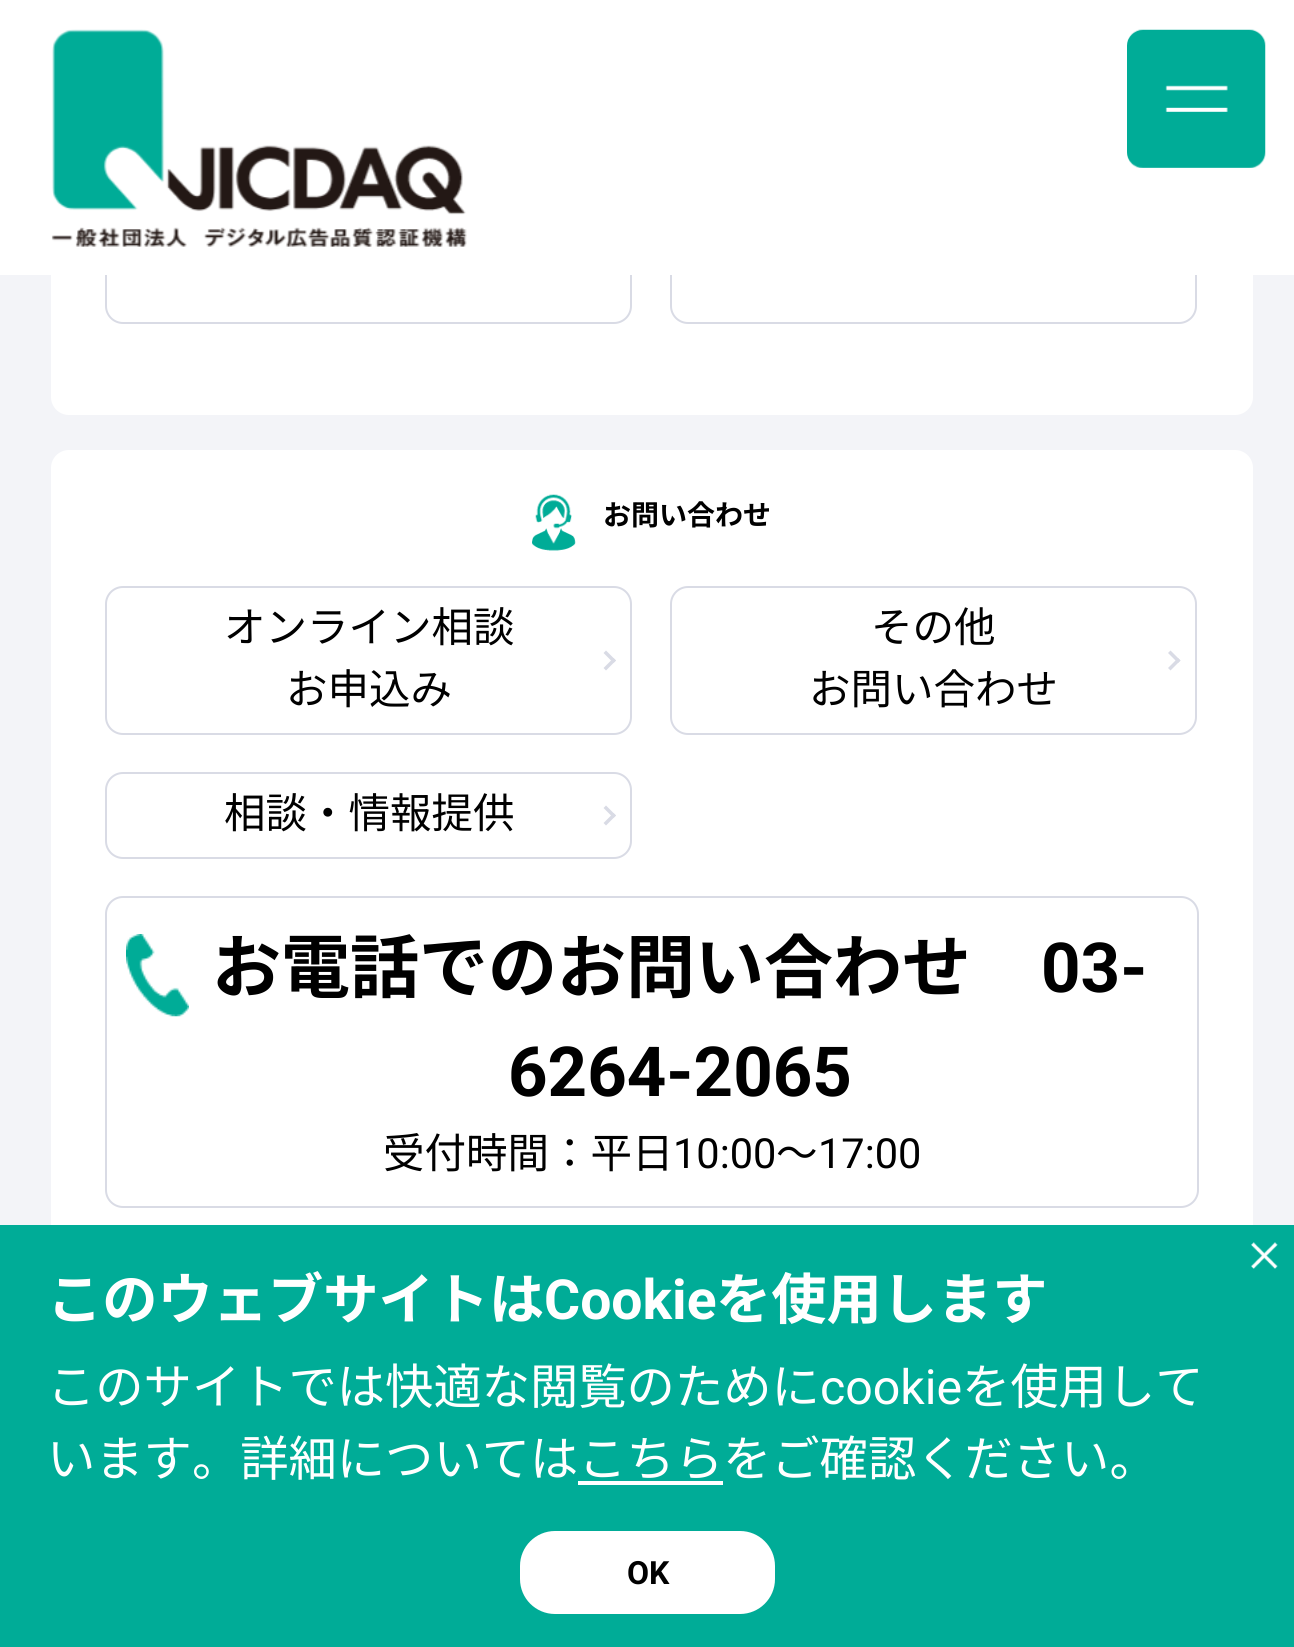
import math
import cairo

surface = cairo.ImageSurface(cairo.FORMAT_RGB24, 1294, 1647)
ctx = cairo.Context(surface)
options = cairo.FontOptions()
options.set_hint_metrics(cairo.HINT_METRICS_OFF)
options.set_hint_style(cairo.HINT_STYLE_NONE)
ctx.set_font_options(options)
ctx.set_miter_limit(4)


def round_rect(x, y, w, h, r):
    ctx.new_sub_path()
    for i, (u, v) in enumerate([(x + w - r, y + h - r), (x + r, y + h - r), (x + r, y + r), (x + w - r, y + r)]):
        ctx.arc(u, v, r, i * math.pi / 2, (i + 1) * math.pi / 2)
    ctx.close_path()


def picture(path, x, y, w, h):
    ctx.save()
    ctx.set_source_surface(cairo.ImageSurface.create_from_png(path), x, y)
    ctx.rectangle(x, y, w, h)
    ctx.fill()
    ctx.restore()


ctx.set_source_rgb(0.953, 0.957, 0.969)
ctx.paint()
ctx.set_source_rgb(1, 1, 1)
round_rect(51, -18, 1202, 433, 18)
ctx.fill()
round_rect(106, 174, 525, 149, 17)
ctx.set_source_rgb(0.851, 0.859, 0.898)
ctx.stroke()
round_rect(671, 174, 525, 149, 17)
ctx.stroke()
ctx.set_source_rgb(1, 1, 1)
ctx.rectangle(0, 0, 1294, 275)
ctx.fill()
picture("img1.png", 51, 29, 416, 218)
picture("img2.png", 1127, 29, 139, 139)
round_rect(51, 450, 1202, 842, 18)
ctx.fill()
picture("img3.png", 532, 494, 44, 57)
ctx.select_font_face("Noto Sans JP", cairo.FONT_SLANT_NORMAL, cairo.FONT_WEIGHT_BOLD)
ctx.set_font_size(28)
ctx.set_source_rgb(0, 0, 0)
ctx.move_to(603, 525)
ctx.show_text("お問い合わせ")
round_rect(106, 587, 525, 147, 17)
ctx.set_source_rgb(0.851, 0.859, 0.898)
ctx.stroke()
ctx.select_font_face("Noto Sans JP")
ctx.set_font_size(41.5)
ctx.set_source_rgb(0, 0, 0)
ctx.move_to(224, 642)
ctx.show_text("オンライン相談")
ctx.set_source_rgb(0.851, 0.859, 0.898)
ctx.new_path()
ctx.move_to(613.5, 663)
ctx.line_to(603.5, 653)
ctx.line_to(606, 650.5)
ctx.line_to(616, 660.5)
ctx.close_path()
ctx.fill()
ctx.new_path()
ctx.move_to(606, 670.5)
ctx.line_to(603.5, 668)
ctx.line_to(613.5, 658)
ctx.line_to(616, 660.5)
ctx.close_path()
ctx.fill()
ctx.set_source_rgb(0, 0, 0)
ctx.move_to(286, 704)
ctx.show_text("お申込み")
round_rect(671, 587, 525, 147, 17)
ctx.set_source_rgb(0.851, 0.859, 0.898)
ctx.stroke()
ctx.set_source_rgb(0, 0, 0)
ctx.move_to(871, 642)
ctx.show_text("その他")
ctx.set_source_rgb(0.851, 0.859, 0.898)
ctx.new_path()
ctx.move_to(1178, 663)
ctx.line_to(1168, 653)
ctx.line_to(1170.5, 650.5)
ctx.line_to(1180.5, 660.5)
ctx.close_path()
ctx.fill()
ctx.new_path()
ctx.move_to(1170.5, 670.5)
ctx.line_to(1168, 668)
ctx.line_to(1178, 658)
ctx.line_to(1180.5, 660.5)
ctx.close_path()
ctx.fill()
ctx.set_source_rgb(0, 0, 0)
ctx.move_to(809, 704)
ctx.show_text("お問い合わせ")
round_rect(106, 773, 525, 85, 17)
ctx.set_source_rgb(0.851, 0.859, 0.898)
ctx.stroke()
ctx.set_source_rgb(0, 0, 0)
ctx.move_to(224, 828)
ctx.show_text("相談・情報提供")
ctx.set_source_rgb(0.851, 0.859, 0.898)
ctx.new_path()
ctx.move_to(613.5, 818)
ctx.line_to(603.5, 808)
ctx.line_to(606, 805.5)
ctx.line_to(616, 815.5)
ctx.close_path()
ctx.fill()
ctx.new_path()
ctx.move_to(606, 825.5)
ctx.line_to(603.5, 823)
ctx.line_to(613.5, 813)
ctx.line_to(616, 815.5)
ctx.close_path()
ctx.fill()
round_rect(106, 897, 1092, 310, 17)
ctx.stroke()
picture("img4.png", 126, 934, 63, 83)
ctx.select_font_face("Noto Sans JP", cairo.FONT_SLANT_NORMAL, cairo.FONT_WEIGHT_BOLD)
ctx.set_font_size(69)
ctx.set_source_rgb(0, 0, 0)
ctx.move_to(212, 992)
ctx.show_text("お電話でのお問い合わせ")
ctx.select_font_face("Roboto", cairo.FONT_SLANT_NORMAL, cairo.FONT_WEIGHT_BOLD)
ctx.move_to(1041, 992)
ctx.show_text("03-")
ctx.move_to(508, 1096)
ctx.show_text("6264-2065")
ctx.select_font_face("Noto Sans JP")
ctx.set_font_size(41.5)
ctx.move_to(383, 1168)
ctx.show_text("受付時間：平日")
ctx.select_font_face("Roboto")
ctx.move_to(673, 1168)
ctx.show_text("10:00")
ctx.select_font_face("Noto Sans JP")
ctx.move_to(776, 1168)
ctx.show_text("～")
ctx.select_font_face("Roboto")
ctx.move_to(818, 1168)
ctx.show_text("17:00")
ctx.set_source_rgb(0, 0.675, 0.592)
ctx.rectangle(0, 1225, 1294, 422)
ctx.fill()
picture("img5.png", 1251, 1242, 27, 27)
ctx.select_font_face("Noto Sans JP", cairo.FONT_SLANT_NORMAL, cairo.FONT_WEIGHT_BOLD)
ctx.set_font_size(55.25)
ctx.set_source_rgb(1, 1, 1)
ctx.move_to(47, 1319)
ctx.show_text("このウェブサイトは")
ctx.select_font_face("Roboto", cairo.FONT_SLANT_NORMAL, cairo.FONT_WEIGHT_BOLD)
ctx.move_to(544, 1319)
ctx.show_text("Cookie")
ctx.select_font_face("Noto Sans JP", cairo.FONT_SLANT_NORMAL, cairo.FONT_WEIGHT_BOLD)
ctx.move_to(716, 1319)
ctx.show_text("を使用します")
ctx.select_font_face("Noto Sans JP")
ctx.set_font_size(48.3)
ctx.move_to(47, 1404)
ctx.show_text("このサイトでは快適な閲覧のために")
ctx.select_font_face("Roboto")
ctx.move_to(820, 1404)
ctx.show_text("cookie")
ctx.select_font_face("Noto Sans JP")
ctx.move_to(962, 1404)
ctx.show_text("を使用して")
ctx.move_to(47, 1476)
ctx.show_text("います。詳細についてはこちら")
ctx.move_to(723, 1476)
ctx.show_text("をご確認ください。")
ctx.rectangle(578, 1481, 145, 4)
ctx.fill()
round_rect(520, 1531, 255, 83, 35)
ctx.fill()
ctx.select_font_face("Roboto", cairo.FONT_SLANT_NORMAL, cairo.FONT_WEIGHT_BOLD)
ctx.set_font_size(32)
ctx.set_source_rgb(0, 0, 0)
ctx.move_to(627, 1584)
ctx.show_text("OK")
surface.write_to_png("page.png")
